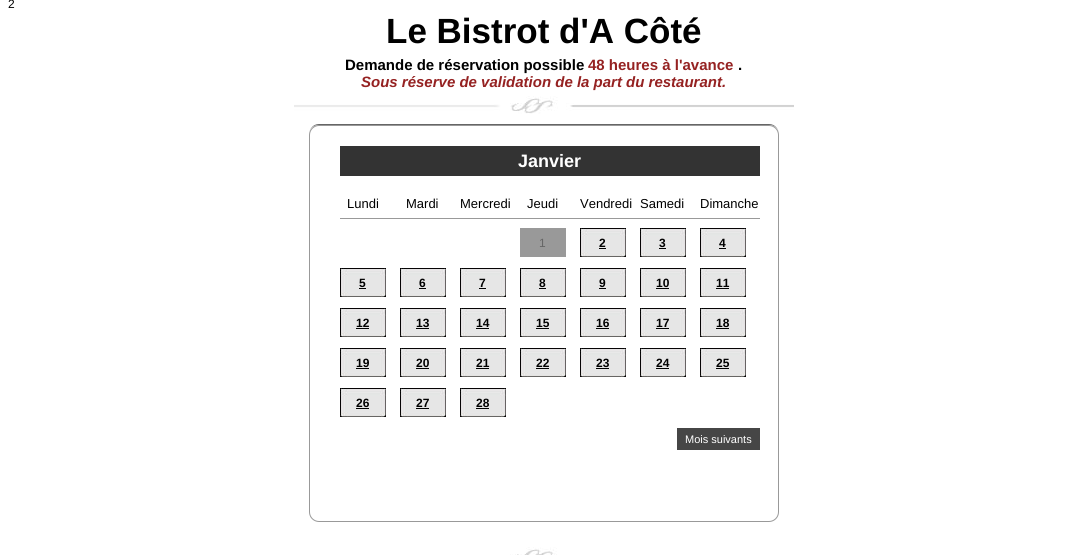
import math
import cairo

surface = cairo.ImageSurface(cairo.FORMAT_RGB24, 1087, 555)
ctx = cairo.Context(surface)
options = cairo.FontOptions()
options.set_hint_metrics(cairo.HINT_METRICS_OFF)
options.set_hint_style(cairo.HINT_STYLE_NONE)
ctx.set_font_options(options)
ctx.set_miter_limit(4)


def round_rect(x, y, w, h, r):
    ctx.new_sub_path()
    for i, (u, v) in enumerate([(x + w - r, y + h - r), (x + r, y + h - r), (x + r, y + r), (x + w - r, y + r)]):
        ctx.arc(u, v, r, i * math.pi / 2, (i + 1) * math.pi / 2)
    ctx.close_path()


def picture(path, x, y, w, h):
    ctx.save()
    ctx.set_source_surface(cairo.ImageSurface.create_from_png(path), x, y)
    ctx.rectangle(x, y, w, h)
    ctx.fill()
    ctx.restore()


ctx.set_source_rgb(1, 1, 1)
ctx.paint()
ctx.select_font_face("Liberation Sans")
ctx.set_font_size(12)
ctx.set_source_rgb(0, 0, 0)
ctx.move_to(8, 8)
ctx.show_text("2")
ctx.select_font_face("Liberation Sans", cairo.FONT_SLANT_NORMAL, cairo.FONT_WEIGHT_BOLD)
ctx.set_font_size(35)
ctx.move_to(386, 43)
ctx.show_text("Le Bistrot d'A Côté")
ctx.set_font_size(15)
ctx.move_to(345, 70)
ctx.show_text("Demande de réservation possible")
ctx.set_source_rgb(0.584, 0.133, 0.133)
ctx.move_to(588, 70)
ctx.show_text("48 heures à l'avance")
ctx.set_source_rgb(0, 0, 0)
ctx.move_to(738, 70)
ctx.show_text(".")
ctx.select_font_face("Liberation Sans", cairo.FONT_SLANT_ITALIC, cairo.FONT_WEIGHT_BOLD)
ctx.set_source_rgb(0.584, 0.133, 0.133)
ctx.move_to(361, 87)
ctx.show_text("Sous réserve de validation de la part du restaurant.")
picture("img1.png", 294, 96, 500, 18)
ctx.set_source_rgb(0.4, 0.4, 0.4)
ctx.new_path()
ctx.move_to(319, 124)
ctx.curve_to(313, 124, 309, 129, 309, 135)
ctx.curve_to(309, 129, 313, 125, 319, 125)
ctx.line_to(769, 125)
ctx.curve_to(775, 125, 779, 129, 779, 135)
ctx.curve_to(779, 129, 775, 124, 769, 124)
ctx.close_path()
ctx.fill()
round_rect(309.5, 125.5, 469, 396, 9.5)
ctx.set_source_rgb(0.6, 0.6, 0.6)
ctx.set_line_width(1)
ctx.stroke()
ctx.set_source_rgb(0.2, 0.2, 0.2)
ctx.rectangle(340, 146, 420, 30)
ctx.fill()
ctx.select_font_face("Liberation Sans", cairo.FONT_SLANT_NORMAL, cairo.FONT_WEIGHT_BOLD)
ctx.set_font_size(18)
ctx.set_source_rgb(1, 1, 1)
ctx.move_to(518, 167)
ctx.show_text("Janvier")
ctx.set_source_rgb(0.6, 0.6, 0.6)
ctx.rectangle(340, 218, 420, 1)
ctx.fill()
ctx.select_font_face("Liberation Sans")
ctx.set_font_size(13)
ctx.set_source_rgb(0, 0, 0)
ctx.move_to(347, 208)
ctx.show_text("Lundi")
ctx.move_to(406, 208)
ctx.show_text("Mardi")
ctx.move_to(460, 208)
ctx.show_text("Mercredi")
ctx.move_to(527, 208)
ctx.show_text("Jeudi")
ctx.move_to(580, 208)
ctx.show_text("Vendredi")
ctx.move_to(640, 208)
ctx.show_text("Samedi")
ctx.move_to(700, 208)
ctx.show_text("Dimanche")
ctx.set_source_rgb(0.6, 0.6, 0.6)
ctx.rectangle(520, 228, 46, 29)
ctx.fill()
ctx.set_font_size(12)
ctx.set_source_rgb(0.4, 0.4, 0.4)
ctx.move_to(539, 247)
ctx.show_text("1")
picture("img2.png", 580, 228, 46, 29)
ctx.select_font_face("Liberation Sans", cairo.FONT_SLANT_NORMAL, cairo.FONT_WEIGHT_BOLD)
ctx.set_source_rgb(0, 0, 0)
ctx.move_to(599, 247)
ctx.show_text("2")
ctx.rectangle(599, 248, 7, 1)
ctx.fill()
picture("img2.png", 640, 228, 46, 29)
ctx.move_to(659, 247)
ctx.show_text("3")
ctx.rectangle(659, 248, 7, 1)
ctx.fill()
picture("img2.png", 700, 228, 46, 29)
ctx.move_to(719, 247)
ctx.show_text("4")
ctx.rectangle(719, 248, 7, 1)
ctx.fill()
picture("img2.png", 340, 268, 46, 29)
ctx.move_to(359, 287)
ctx.show_text("5")
ctx.rectangle(359, 288, 7, 1)
ctx.fill()
picture("img2.png", 400, 268, 46, 29)
ctx.move_to(419, 287)
ctx.show_text("6")
ctx.rectangle(419, 288, 7, 1)
ctx.fill()
picture("img2.png", 460, 268, 46, 29)
ctx.move_to(479, 287)
ctx.show_text("7")
ctx.rectangle(479, 288, 7, 1)
ctx.fill()
picture("img2.png", 520, 268, 46, 29)
ctx.move_to(539, 287)
ctx.show_text("8")
ctx.rectangle(539, 288, 7, 1)
ctx.fill()
picture("img2.png", 580, 268, 46, 29)
ctx.move_to(599, 287)
ctx.show_text("9")
ctx.rectangle(599, 288, 7, 1)
ctx.fill()
picture("img2.png", 640, 268, 46, 29)
ctx.move_to(656, 287)
ctx.show_text("10")
ctx.rectangle(656, 288, 13, 1)
ctx.fill()
picture("img2.png", 700, 268, 46, 29)
ctx.move_to(716, 287)
ctx.show_text("11")
ctx.rectangle(716, 288, 13, 1)
ctx.fill()
picture("img2.png", 340, 308, 46, 29)
ctx.move_to(356, 327)
ctx.show_text("12")
ctx.rectangle(356, 328, 13, 1)
ctx.fill()
picture("img2.png", 400, 308, 46, 29)
ctx.move_to(416, 327)
ctx.show_text("13")
ctx.rectangle(416, 328, 13, 1)
ctx.fill()
picture("img2.png", 460, 308, 46, 29)
ctx.move_to(476, 327)
ctx.show_text("14")
ctx.rectangle(476, 328, 13, 1)
ctx.fill()
picture("img2.png", 520, 308, 46, 29)
ctx.move_to(536, 327)
ctx.show_text("15")
ctx.rectangle(536, 328, 13, 1)
ctx.fill()
picture("img2.png", 580, 308, 46, 29)
ctx.move_to(596, 327)
ctx.show_text("16")
ctx.rectangle(596, 328, 13, 1)
ctx.fill()
picture("img2.png", 640, 308, 46, 29)
ctx.move_to(656, 327)
ctx.show_text("17")
ctx.rectangle(656, 328, 13, 1)
ctx.fill()
picture("img2.png", 700, 308, 46, 29)
ctx.move_to(716, 327)
ctx.show_text("18")
ctx.rectangle(716, 328, 13, 1)
ctx.fill()
picture("img2.png", 340, 348, 46, 29)
ctx.move_to(356, 367)
ctx.show_text("19")
ctx.rectangle(356, 368, 13, 1)
ctx.fill()
picture("img2.png", 400, 348, 46, 29)
ctx.move_to(416, 367)
ctx.show_text("20")
ctx.rectangle(416, 368, 13, 1)
ctx.fill()
picture("img2.png", 460, 348, 46, 29)
ctx.move_to(476, 367)
ctx.show_text("21")
ctx.rectangle(476, 368, 13, 1)
ctx.fill()
picture("img2.png", 520, 348, 46, 29)
ctx.move_to(536, 367)
ctx.show_text("22")
ctx.rectangle(536, 368, 13, 1)
ctx.fill()
picture("img2.png", 580, 348, 46, 29)
ctx.move_to(596, 367)
ctx.show_text("23")
ctx.rectangle(596, 368, 13, 1)
ctx.fill()
picture("img2.png", 640, 348, 46, 29)
ctx.move_to(656, 367)
ctx.show_text("24")
ctx.rectangle(656, 368, 13, 1)
ctx.fill()
picture("img2.png", 700, 348, 46, 29)
ctx.move_to(716, 367)
ctx.show_text("25")
ctx.rectangle(716, 368, 13, 1)
ctx.fill()
picture("img2.png", 340, 388, 46, 29)
ctx.move_to(356, 407)
ctx.show_text("26")
ctx.rectangle(356, 408, 13, 1)
ctx.fill()
picture("img2.png", 400, 388, 46, 29)
ctx.move_to(416, 407)
ctx.show_text("27")
ctx.rectangle(416, 408, 13, 1)
ctx.fill()
picture("img2.png", 460, 388, 46, 29)
ctx.move_to(476, 407)
ctx.show_text("28")
ctx.rectangle(476, 408, 13, 1)
ctx.fill()
ctx.set_source_rgb(0.275, 0.275, 0.275)
ctx.rectangle(677, 428, 83, 22)
ctx.fill()
ctx.select_font_face("Liberation Sans")
ctx.set_font_size(11)
ctx.set_source_rgb(1, 1, 1)
ctx.move_to(685, 443)
ctx.show_text("Mois suivants")
picture("img3.png", 510, 547, 47, 8)
surface.write_to_png("page.png")
